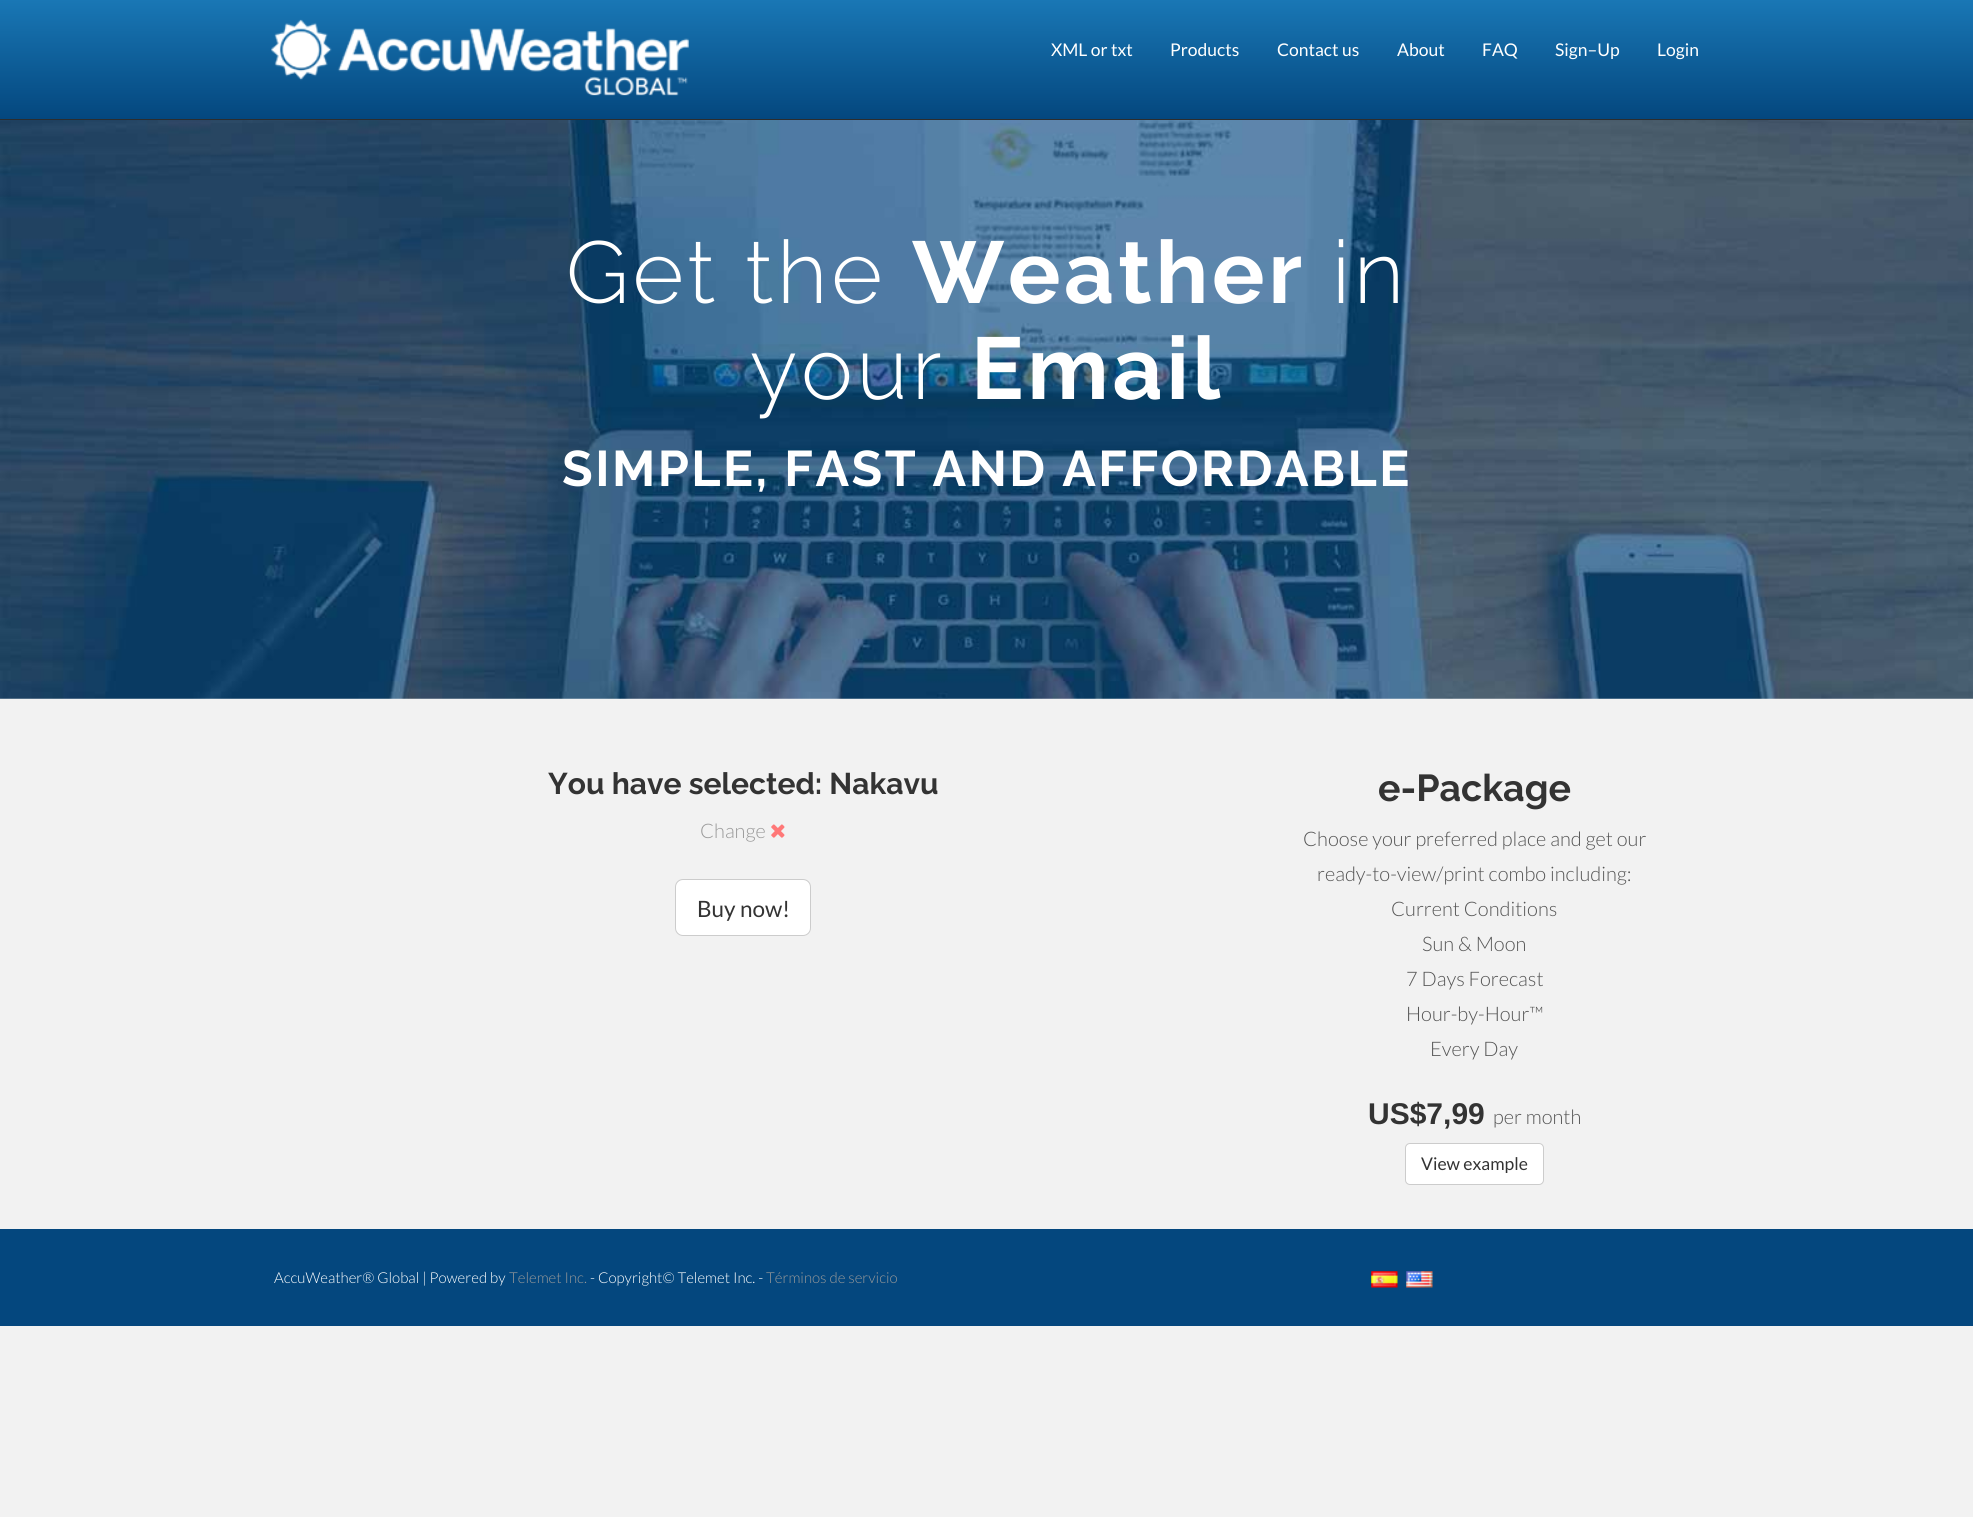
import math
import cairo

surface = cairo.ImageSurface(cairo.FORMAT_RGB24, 1973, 1517)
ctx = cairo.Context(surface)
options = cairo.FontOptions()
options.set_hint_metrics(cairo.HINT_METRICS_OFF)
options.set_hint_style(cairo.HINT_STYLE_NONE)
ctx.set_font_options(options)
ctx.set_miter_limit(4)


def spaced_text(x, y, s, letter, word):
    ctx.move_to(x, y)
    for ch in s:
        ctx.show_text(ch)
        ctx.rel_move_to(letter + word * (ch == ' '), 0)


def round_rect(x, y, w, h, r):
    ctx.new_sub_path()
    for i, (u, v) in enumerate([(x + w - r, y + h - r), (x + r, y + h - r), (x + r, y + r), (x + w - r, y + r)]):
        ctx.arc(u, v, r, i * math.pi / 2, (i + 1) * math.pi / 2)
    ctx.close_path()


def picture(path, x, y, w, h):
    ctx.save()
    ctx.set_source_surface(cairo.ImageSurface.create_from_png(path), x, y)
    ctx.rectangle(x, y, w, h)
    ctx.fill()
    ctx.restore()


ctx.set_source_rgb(0.949, 0.949, 0.949)
ctx.paint()
gradient = cairo.LinearGradient(987, 0, 987, 119)
gradient.add_color_stop_rgba(0, 0.098, 0.467, 0.71, 1)
gradient.add_color_stop_rgba(1, 0.016, 0.278, 0.494, 1)
ctx.set_source(gradient)
ctx.rectangle(0, 0, 1973, 119)
ctx.fill()
ctx.set_source_rgb(0.176, 0.176, 0.176)
ctx.rectangle(0, 119, 1973, 1)
ctx.fill()
picture("img1.png", 271, 19, 418, 77)
ctx.select_font_face("Lato")
ctx.set_font_size(17.5)
ctx.set_source_rgb(1, 1, 1)
ctx.move_to(1051, 56)
ctx.show_text("XML or txt")
ctx.move_to(1170, 56)
ctx.show_text("Products")
ctx.move_to(1277, 56)
ctx.show_text("Contact us")
ctx.move_to(1397, 56)
ctx.show_text("About")
ctx.move_to(1482, 56)
ctx.show_text("FAQ")
ctx.move_to(1555, 56)
ctx.show_text("Sign–Up")
ctx.move_to(1657, 56)
ctx.show_text("Login")
picture("img2.png", 0, 120, 1973, 579)
ctx.select_font_face("Raleway Light")
ctx.set_font_size(87.5)
spaced_text(566, 303, "Get the", 3.75, 0)
ctx.select_font_face("Raleway", cairo.FONT_SLANT_NORMAL, cairo.FONT_WEIGHT_BOLD)
spaced_text(912, 303, "Weather", 3.75, 0)
ctx.select_font_face("Raleway Light")
spaced_text(1332, 303, "in", 3.75, 0)
spaced_text(750, 399, "your", 3.75, 0)
ctx.select_font_face("Raleway", cairo.FONT_SLANT_NORMAL, cairo.FONT_WEIGHT_BOLD)
spaced_text(971, 399, "Email", 3.75, 0)
ctx.set_font_size(50)
spaced_text(562, 486, "SIMPLE, FAST AND AFFORDABLE", 2.5, 0)
ctx.set_font_size(30)
ctx.set_source_rgb(0.2, 0.2, 0.2)
ctx.move_to(548, 794)
ctx.show_text("You have selected: Nakavu")
ctx.select_font_face("Lato Light")
ctx.set_font_size(20)
ctx.set_source_rgb(0.6, 0.6, 0.6)
ctx.move_to(700, 838)
ctx.show_text("Change")
picture("img3.png", 771, 824, 14, 14)
ctx.set_source_rgb(1, 1, 1)
round_rect(675.5, 879.5, 135, 56, 7.5)
ctx.fill_preserve()
ctx.set_source_rgb(0.8, 0.8, 0.8)
ctx.set_line_width(1)
ctx.stroke()
ctx.select_font_face("Lato")
ctx.set_font_size(22.5)
ctx.set_source_rgb(0.2, 0.2, 0.2)
ctx.move_to(697, 917)
ctx.show_text("Buy now!")
ctx.select_font_face("Raleway", cairo.FONT_SLANT_NORMAL, cairo.FONT_WEIGHT_BOLD)
ctx.set_font_size(37.5)
ctx.move_to(1378, 801)
ctx.show_text("e-Package")
ctx.select_font_face("Lato Light")
ctx.set_font_size(20)
ctx.set_source_rgb(0.333, 0.333, 0.333)
ctx.move_to(1303, 846)
ctx.show_text("Choose your preferred place and get our")
ctx.move_to(1317, 881)
ctx.show_text("ready-to-view/print combo including:")
ctx.move_to(1391, 916)
ctx.show_text("Current Conditions")
ctx.move_to(1422, 951)
ctx.show_text("Sun & Moon")
ctx.move_to(1406, 986)
ctx.show_text("7 Days Forecast")
ctx.move_to(1406, 1021)
ctx.show_text("Hour-by-Hour™")
ctx.move_to(1430, 1056)
ctx.show_text("Every Day")
ctx.select_font_face("Liberation Sans", cairo.FONT_SLANT_NORMAL, cairo.FONT_WEIGHT_BOLD)
ctx.set_font_size(30)
ctx.set_source_rgb(0.2, 0.2, 0.2)
ctx.move_to(1368, 1124)
ctx.show_text("US$7,99")
ctx.select_font_face("Lato Light")
ctx.set_font_size(20)
ctx.set_source_rgb(0.333, 0.333, 0.333)
ctx.move_to(1493, 1124)
ctx.show_text("per month")
ctx.set_source_rgb(1, 1, 1)
round_rect(1405.5, 1143.5, 138, 41, 4.5)
ctx.fill_preserve()
ctx.set_source_rgb(0.8, 0.8, 0.8)
ctx.stroke()
ctx.select_font_face("Lato")
ctx.set_font_size(17.5)
ctx.set_source_rgb(0.2, 0.2, 0.2)
ctx.move_to(1421, 1170)
ctx.show_text("View example")
ctx.set_source_rgb(0.016, 0.278, 0.494)
ctx.rectangle(0, 1229, 1973, 97)
ctx.fill()
ctx.select_font_face("Lato Light")
ctx.set_font_size(15)
ctx.set_source_rgb(1, 1, 1)
ctx.move_to(274, 1283)
ctx.show_text("AccuWeather® Global | Powered by")
ctx.set_source_rgb(0.6, 0.6, 0.6)
ctx.move_to(509, 1283)
ctx.show_text("Telemet Inc.")
ctx.set_source_rgb(1, 1, 1)
ctx.move_to(590, 1283)
ctx.show_text("- Copyright© Telemet Inc. -")
ctx.set_source_rgb(0.6, 0.6, 0.6)
ctx.move_to(766, 1283)
ctx.show_text("Términos de servicio")
picture("img4.png", 1371, 1271, 27, 17)
picture("img5.png", 1406, 1271, 27, 17)
surface.write_to_png("page.png")
